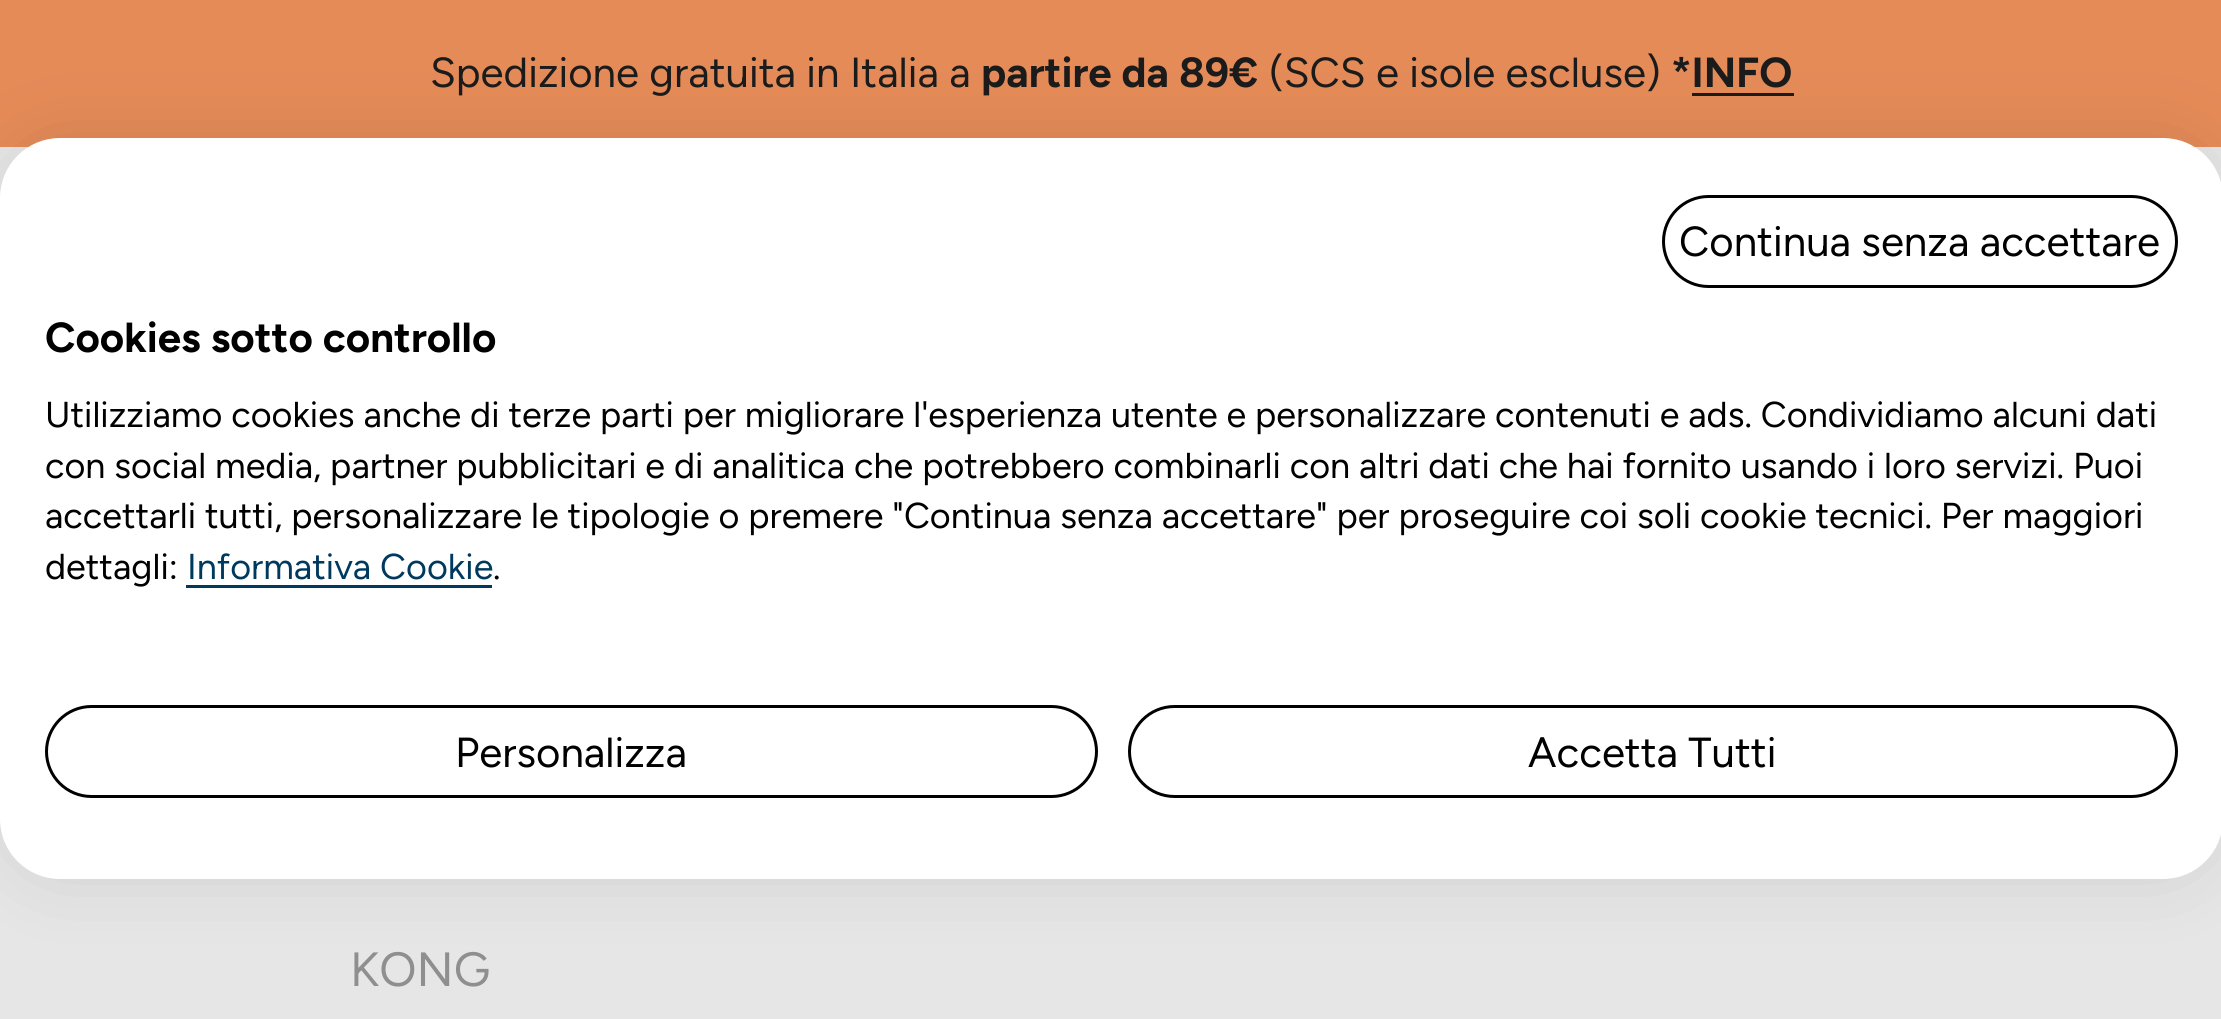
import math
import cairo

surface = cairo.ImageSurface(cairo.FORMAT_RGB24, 2221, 1019)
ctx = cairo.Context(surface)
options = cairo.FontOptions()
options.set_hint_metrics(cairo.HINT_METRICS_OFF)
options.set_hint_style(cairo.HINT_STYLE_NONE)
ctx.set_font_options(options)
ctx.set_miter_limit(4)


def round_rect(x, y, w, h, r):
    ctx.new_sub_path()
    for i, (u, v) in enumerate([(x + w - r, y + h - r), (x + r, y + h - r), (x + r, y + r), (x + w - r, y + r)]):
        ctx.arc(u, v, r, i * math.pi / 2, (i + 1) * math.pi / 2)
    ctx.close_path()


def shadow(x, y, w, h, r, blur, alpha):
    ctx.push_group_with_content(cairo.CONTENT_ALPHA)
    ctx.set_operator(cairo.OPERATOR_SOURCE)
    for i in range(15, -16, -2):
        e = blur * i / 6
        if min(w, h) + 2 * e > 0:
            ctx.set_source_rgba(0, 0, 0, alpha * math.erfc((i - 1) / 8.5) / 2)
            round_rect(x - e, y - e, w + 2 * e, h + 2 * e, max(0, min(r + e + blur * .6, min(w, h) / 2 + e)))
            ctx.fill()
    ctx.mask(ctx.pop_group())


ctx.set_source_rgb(0.902, 0.902, 0.902)
ctx.paint()
ctx.set_source_rgb(0.898, 0.545, 0.345)
ctx.rectangle(0, 0, 2221, 147)
ctx.fill()
ctx.select_font_face("Figtree Light")
ctx.set_font_size(42)
ctx.set_source_rgb(0.106, 0.106, 0.106)
ctx.move_to(430, 87)
ctx.show_text("Spedizione gratuita in Italia a")
ctx.select_font_face("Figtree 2 Light")
ctx.move_to(981, 87)
ctx.show_text("partire da 89€")
ctx.select_font_face("Figtree Light")
ctx.move_to(1269, 87)
ctx.show_text("(SCS e isole escluse)")
ctx.select_font_face("Figtree 2 Light")
ctx.move_to(1671, 87)
ctx.show_text("*INFO")
ctx.rectangle(1692, 93, 102, 3)
ctx.fill()
ctx.select_font_face("Figtree Light")
ctx.set_font_size(48)
ctx.set_source_rgb(0.561, 0.561, 0.561)
ctx.move_to(350, 986)
ctx.show_text("KONG")
ctx.set_source_rgb(0, 0, 0)
shadow(0, 138, 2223, 741, 60, 36, 0.1)
ctx.set_source_rgb(1, 1, 1)
round_rect(0, 138, 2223, 741, 60)
ctx.fill()
round_rect(1663.5, 196.5, 513, 90, 45)
ctx.set_source_rgb(0, 0, 0)
ctx.set_line_width(3)
ctx.stroke()
ctx.set_font_size(42)
ctx.move_to(1679, 256)
ctx.show_text("Continua senza accettare")
ctx.select_font_face("Figtree 2 Light")
ctx.move_to(45, 352)
ctx.show_text("Cookies sotto controllo")
ctx.select_font_face("Figtree Light")
ctx.set_font_size(36)
ctx.move_to(45, 427)
ctx.show_text("Utilizziamo cookies anche di terze parti per migliorare l'esperienza utente e personalizzare contenuti e ads. Condividiamo alcuni dati")
ctx.move_to(45, 478)
ctx.show_text("con social media, partner pubblicitari e di analitica che potrebbero combinarli con altri dati che hai fornito usando i loro servizi. Puoi")
ctx.move_to(45, 528)
ctx.show_text("accettarli tutti, personalizzare le tipologie o premere \"Continua senza accettare\" per proseguire coi soli cookie tecnici. Per maggiori")
ctx.move_to(45, 579)
ctx.show_text("dettagli:")
ctx.set_source_rgb(0, 0.224, 0.369)
ctx.move_to(187, 579)
ctx.show_text("Informativa Cookie")
ctx.rectangle(186, 585, 306, 3)
ctx.fill()
ctx.set_source_rgb(0, 0, 0)
ctx.move_to(493, 579)
ctx.show_text(".")
round_rect(46.5, 706.5, 1050, 90, 45)
ctx.stroke()
ctx.set_font_size(42)
ctx.move_to(455, 767)
ctx.show_text("Personalizza")
round_rect(1129.5, 706.5, 1047, 90, 45)
ctx.stroke()
ctx.move_to(1528, 767)
ctx.show_text("Accetta Tutti")
surface.write_to_png("page.png")
